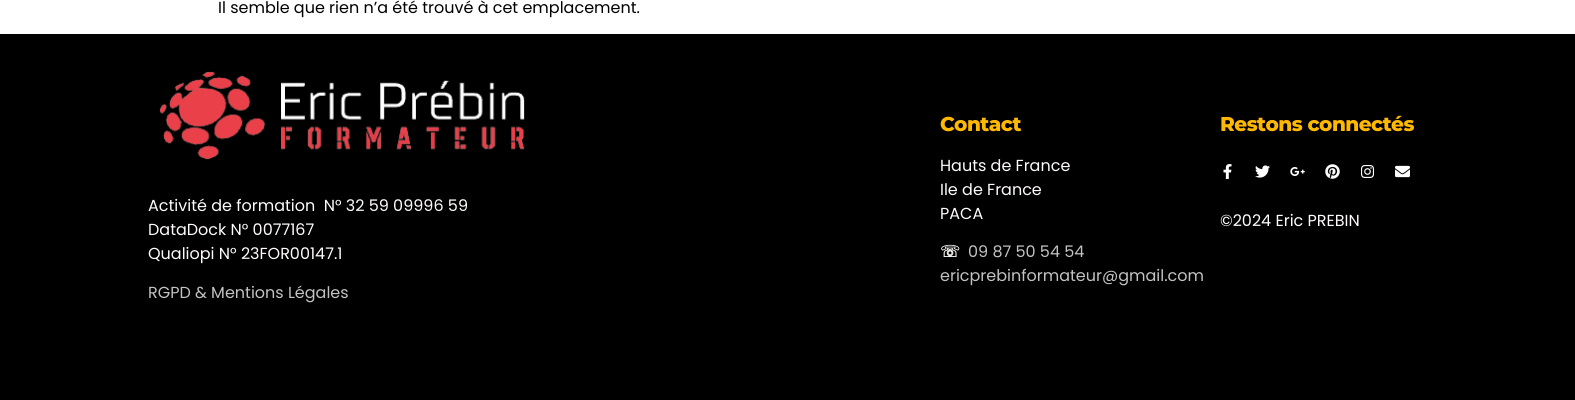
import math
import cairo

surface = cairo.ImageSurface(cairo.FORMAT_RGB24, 1575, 400)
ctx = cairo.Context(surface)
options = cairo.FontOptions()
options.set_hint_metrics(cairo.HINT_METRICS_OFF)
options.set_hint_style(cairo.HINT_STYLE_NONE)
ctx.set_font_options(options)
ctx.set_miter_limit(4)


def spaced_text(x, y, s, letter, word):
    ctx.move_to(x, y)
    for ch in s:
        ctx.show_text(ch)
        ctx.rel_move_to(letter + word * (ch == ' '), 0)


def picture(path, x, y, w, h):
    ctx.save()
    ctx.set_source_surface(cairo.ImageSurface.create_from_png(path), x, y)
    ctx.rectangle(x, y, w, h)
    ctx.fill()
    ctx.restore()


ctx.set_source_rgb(1, 1, 1)
ctx.paint()
ctx.select_font_face("Poppins")
ctx.set_font_size(16)
ctx.set_source_rgb(0, 0, 0)
ctx.move_to(218, 13)
ctx.show_text("Il semble que rien n’a été trouvé à cet emplacement.")
ctx.rectangle(0, 34, 1575, 366)
ctx.fill()
picture("img1.png", 159, 71, 366, 89)
ctx.set_source_rgb(1, 0.984, 0.984)
ctx.move_to(148, 211)
ctx.show_text("Activité de formation  N° 32 59 09996 59")
ctx.move_to(148, 235)
ctx.show_text("DataDock N° 0077167")
ctx.move_to(148, 259)
ctx.show_text("Qualiopi N° 23FOR00147.1")
ctx.set_source_rgb(0.761, 0.761, 0.761)
ctx.move_to(148, 298)
ctx.show_text("RGPD & Mentions Légales")
ctx.select_font_face("Montserrat ExtraBold")
ctx.set_font_size(20)
ctx.set_source_rgb(1, 0.722, 0)
spaced_text(940, 131, "Contact", -0.5, 0)
ctx.select_font_face("Poppins")
ctx.set_font_size(16)
ctx.set_source_rgb(1, 0.984, 0.984)
ctx.move_to(940, 171)
ctx.show_text("Hauts de France")
ctx.move_to(940, 195)
ctx.show_text("Ile de France")
ctx.move_to(940, 219)
ctx.show_text("PACA")
ctx.select_font_face("DejaVu Sans", cairo.FONT_SLANT_NORMAL, cairo.FONT_WEIGHT_BOLD)
ctx.move_to(940, 257)
ctx.show_text("☏")
ctx.select_font_face("Poppins")
ctx.set_source_rgb(0.761, 0.761, 0.761)
ctx.move_to(968, 257)
ctx.show_text("09 87 50 54 54")
ctx.move_to(940, 281)
ctx.show_text("ericprebinformateur@gmail.com")
ctx.select_font_face("Montserrat ExtraBold")
ctx.set_font_size(20)
ctx.set_source_rgb(1, 0.722, 0)
spaced_text(1220, 131, "Restons connectés", -0.5, 0)
picture("img2.png", 1223, 164, 9, 15)
picture("img3.png", 1255, 165, 15, 13)
picture("img4.png", 1290, 167, 15, 9)
picture("img5.png", 1325, 164, 15, 15)
picture("img6.png", 1361, 165, 14, 13)
picture("img7.png", 1395, 165, 15, 13)
ctx.select_font_face("Poppins")
ctx.set_font_size(16)
ctx.set_source_rgb(1, 0.984, 0.984)
ctx.move_to(1220, 226)
ctx.show_text("©2024 Eric PREBIN")
surface.write_to_png("page.png")
